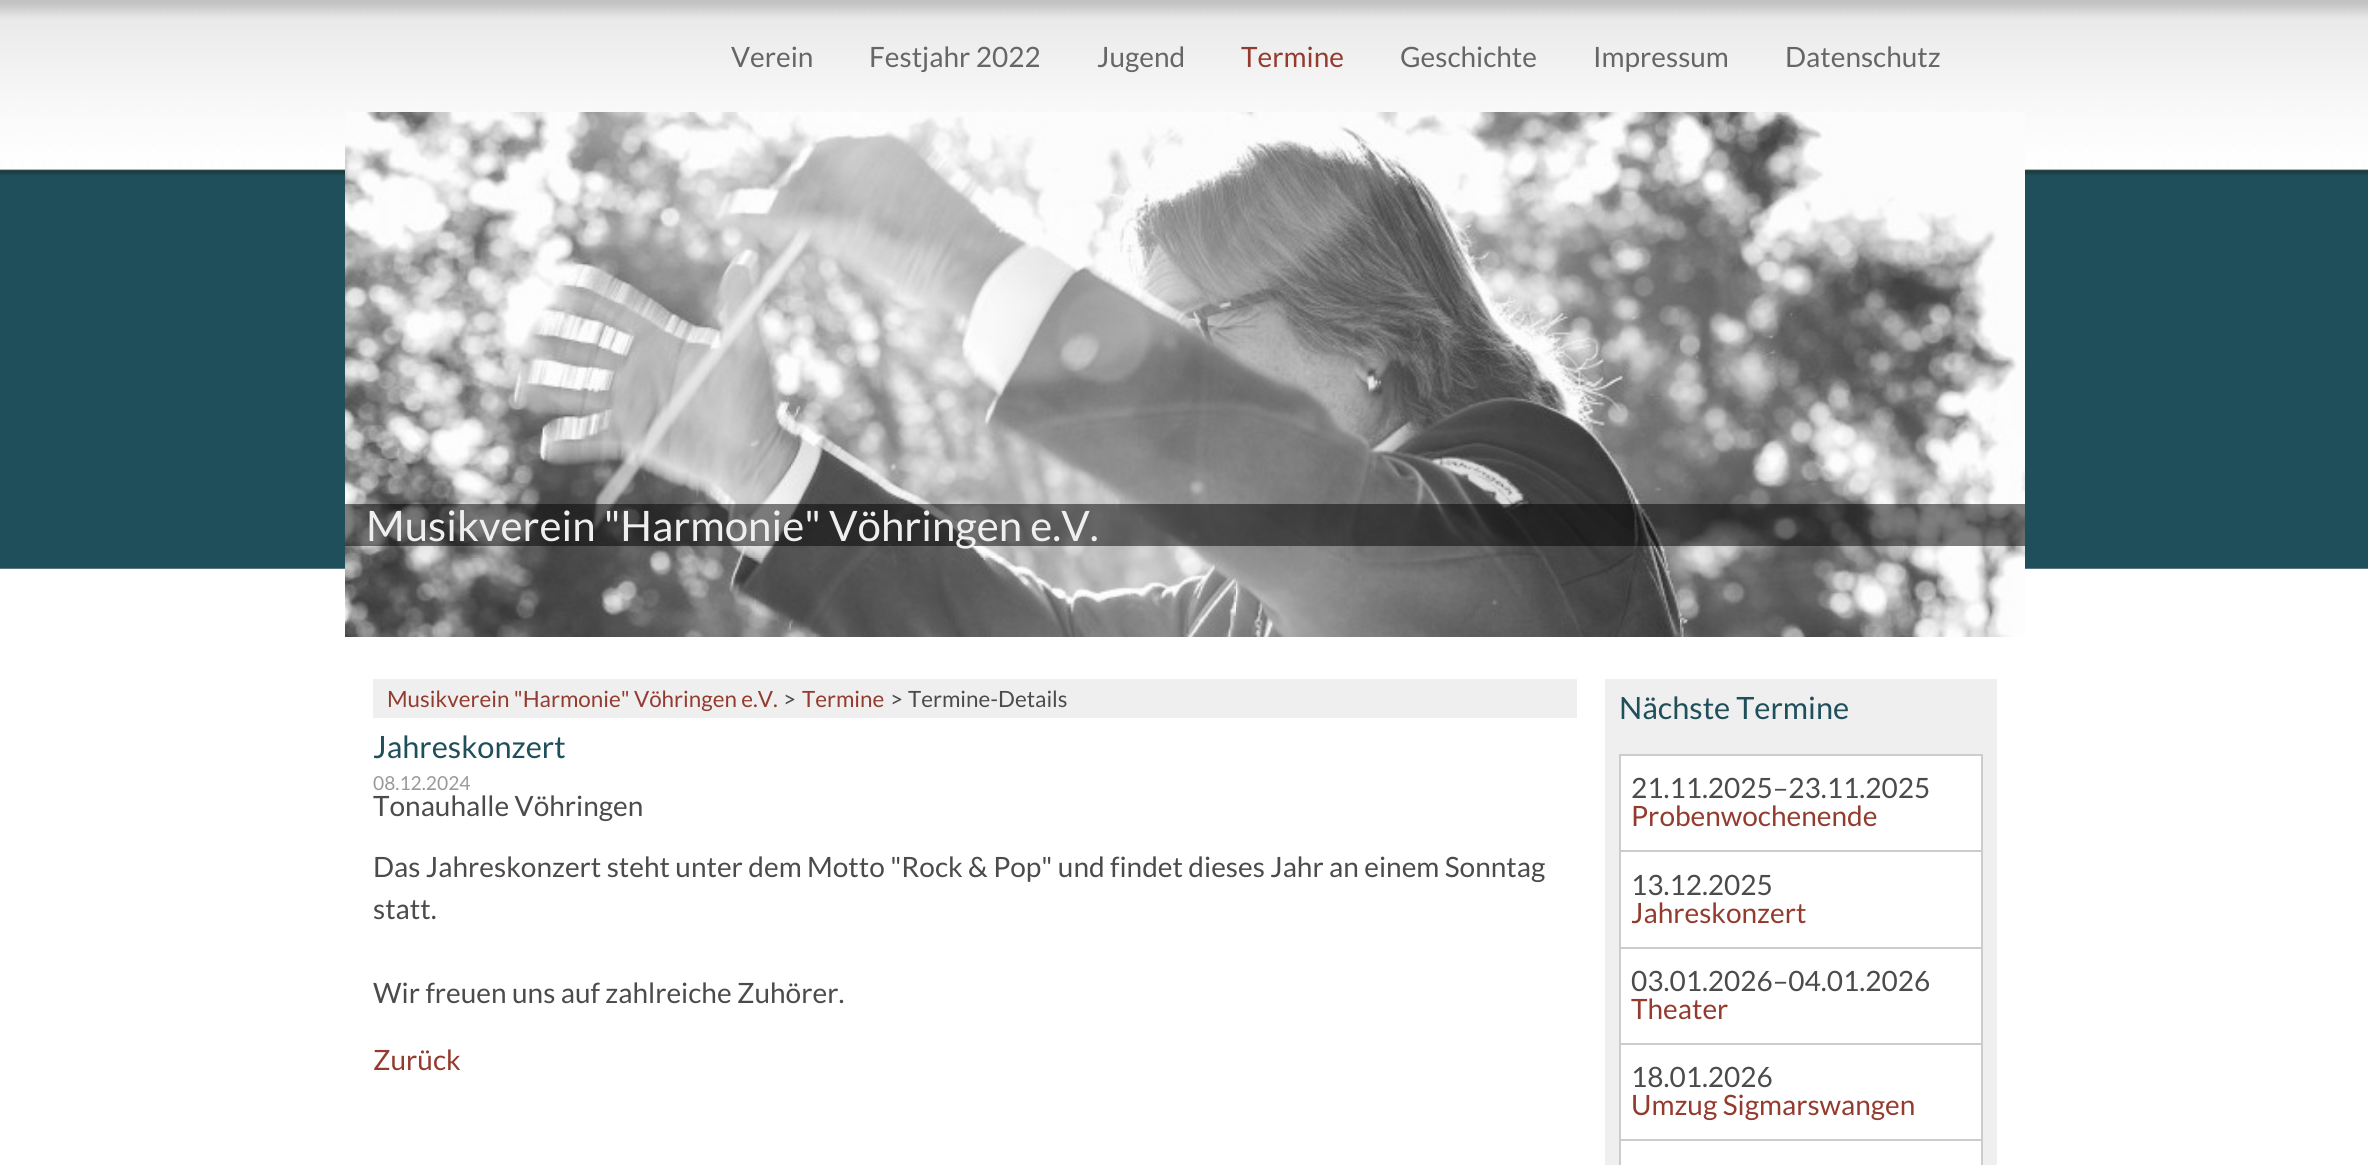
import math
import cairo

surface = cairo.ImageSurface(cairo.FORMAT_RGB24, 2368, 1165)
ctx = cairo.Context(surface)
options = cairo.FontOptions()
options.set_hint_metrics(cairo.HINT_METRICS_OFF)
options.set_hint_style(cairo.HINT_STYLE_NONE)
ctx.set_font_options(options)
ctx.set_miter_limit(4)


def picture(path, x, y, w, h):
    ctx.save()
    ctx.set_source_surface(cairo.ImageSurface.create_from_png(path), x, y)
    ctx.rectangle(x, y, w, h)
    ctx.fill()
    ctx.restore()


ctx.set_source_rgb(1, 1, 1)
ctx.paint()
picture("img1.png", 0, 0, 2368, 569)
ctx.select_font_face("Lato")
ctx.set_font_size(28)
ctx.set_source_rgb(0.4, 0.4, 0.4)
ctx.move_to(731, 67)
ctx.show_text("Verein")
ctx.move_to(869, 67)
ctx.show_text("Festjahr 2022")
ctx.move_to(1097, 67)
ctx.show_text("Jugend")
ctx.set_source_rgb(0.576, 0.231, 0.184)
ctx.move_to(1241, 67)
ctx.show_text("Termine")
ctx.set_source_rgb(0.4, 0.4, 0.4)
ctx.move_to(1400, 67)
ctx.show_text("Geschichte")
ctx.move_to(1593, 67)
ctx.show_text("Impressum")
ctx.move_to(1785, 67)
ctx.show_text("Datenschutz")
picture("img2.png", 345, 112, 1680, 525)
ctx.set_source_rgba(0, 0, 0, 0.5)
ctx.rectangle(345, 504, 1680, 42)
ctx.fill()
ctx.set_font_size(42)
ctx.set_source_rgb(0.937, 0.937, 0.937)
ctx.move_to(366, 541)
ctx.show_text("Musikverein \"Harmonie\" Vöhringen e.V.")
ctx.rectangle(373, 679, 1204, 39)
ctx.fill()
ctx.set_font_size(22.4)
ctx.set_source_rgb(0.576, 0.231, 0.184)
ctx.move_to(387, 707)
ctx.show_text("Musikverein \"Harmonie\" Vöhringen e.V.")
ctx.set_source_rgb(0.298, 0.29, 0.29)
ctx.move_to(783, 707)
ctx.show_text(">")
ctx.set_source_rgb(0.576, 0.231, 0.184)
ctx.move_to(802, 707)
ctx.show_text("Termine")
ctx.set_source_rgb(0.298, 0.29, 0.29)
ctx.move_to(890, 707)
ctx.show_text(">")
ctx.move_to(908, 707)
ctx.show_text("Termine-Details")
ctx.set_font_size(30.75)
ctx.set_source_rgb(0.122, 0.31, 0.357)
ctx.move_to(373, 758)
ctx.show_text("Jahreskonzert")
ctx.set_font_size(19.25)
ctx.set_source_rgb(0.6, 0.6, 0.6)
ctx.move_to(373, 790)
ctx.show_text("08.12.2024")
ctx.set_font_size(28)
ctx.set_source_rgb(0.298, 0.29, 0.29)
ctx.move_to(373, 816)
ctx.show_text("Tonauhalle Vöhringen")
ctx.move_to(373, 877)
ctx.show_text("Das Jahreskonzert steht unter dem Motto \"Rock & Pop\" und findet dieses Jahr an einem Sonntag")
ctx.move_to(373, 919)
ctx.show_text("statt.")
ctx.move_to(373, 1003)
ctx.show_text("Wir freuen uns auf zahlreiche Zuhörer.")
ctx.set_source_rgb(0.576, 0.231, 0.184)
ctx.move_to(373, 1070)
ctx.show_text("Zurück")
ctx.set_source_rgb(0.937, 0.937, 0.937)
ctx.rectangle(1605, 679, 392, 486)
ctx.fill()
ctx.set_font_size(30.75)
ctx.set_source_rgb(0.122, 0.31, 0.357)
ctx.move_to(1619, 719)
ctx.show_text("Nächste Termine")
ctx.set_source_rgb(1, 1, 1)
ctx.rectangle(1620, 755, 362, 96)
ctx.fill_preserve()
ctx.set_source_rgb(0.8, 0.8, 0.8)
ctx.stroke()
ctx.set_font_size(28)
ctx.set_source_rgb(0.298, 0.29, 0.29)
ctx.move_to(1631, 798)
ctx.show_text("21.11.2025–23.11.2025")
ctx.set_source_rgb(0.576, 0.231, 0.184)
ctx.move_to(1631, 826)
ctx.show_text("Probenwochenende")
ctx.set_source_rgb(1, 1, 1)
ctx.rectangle(1621, 852, 360, 95)
ctx.fill()
ctx.set_source_rgb(0.8, 0.8, 0.8)
ctx.rectangle(1981, 852, 2, 313)
ctx.fill()
ctx.rectangle(1619, 947, 364, 2)
ctx.fill()
ctx.rectangle(1619, 852, 2, 97)
ctx.fill()
ctx.set_source_rgb(0.298, 0.29, 0.29)
ctx.move_to(1631, 895)
ctx.show_text("13.12.2025")
ctx.set_source_rgb(0.576, 0.231, 0.184)
ctx.move_to(1631, 923)
ctx.show_text("Jahreskonzert")
ctx.set_source_rgb(1, 1, 1)
ctx.rectangle(1621, 949, 360, 94)
ctx.fill()
ctx.set_source_rgb(0.8, 0.8, 0.8)
ctx.rectangle(1619, 1043, 364, 2)
ctx.fill()
ctx.rectangle(1619, 949, 2, 96)
ctx.fill()
ctx.set_source_rgb(0.298, 0.29, 0.29)
ctx.move_to(1631, 991)
ctx.show_text("03.01.2026–04.01.2026")
ctx.set_source_rgb(0.576, 0.231, 0.184)
ctx.move_to(1631, 1019)
ctx.show_text("Theater")
ctx.set_source_rgb(1, 1, 1)
ctx.rectangle(1621, 1045, 360, 94)
ctx.fill()
ctx.set_source_rgb(0.8, 0.8, 0.8)
ctx.rectangle(1619, 1139, 364, 2)
ctx.fill()
ctx.rectangle(1619, 1045, 2, 120)
ctx.fill()
ctx.set_source_rgb(0.298, 0.29, 0.29)
ctx.move_to(1631, 1087)
ctx.show_text("18.01.2026")
ctx.set_source_rgb(0.576, 0.231, 0.184)
ctx.move_to(1631, 1115)
ctx.show_text("Umzug Sigmarswangen")
ctx.set_source_rgb(1, 1, 1)
ctx.rectangle(1621, 1141, 360, 24)
ctx.fill()
surface.write_to_png("page.png")
